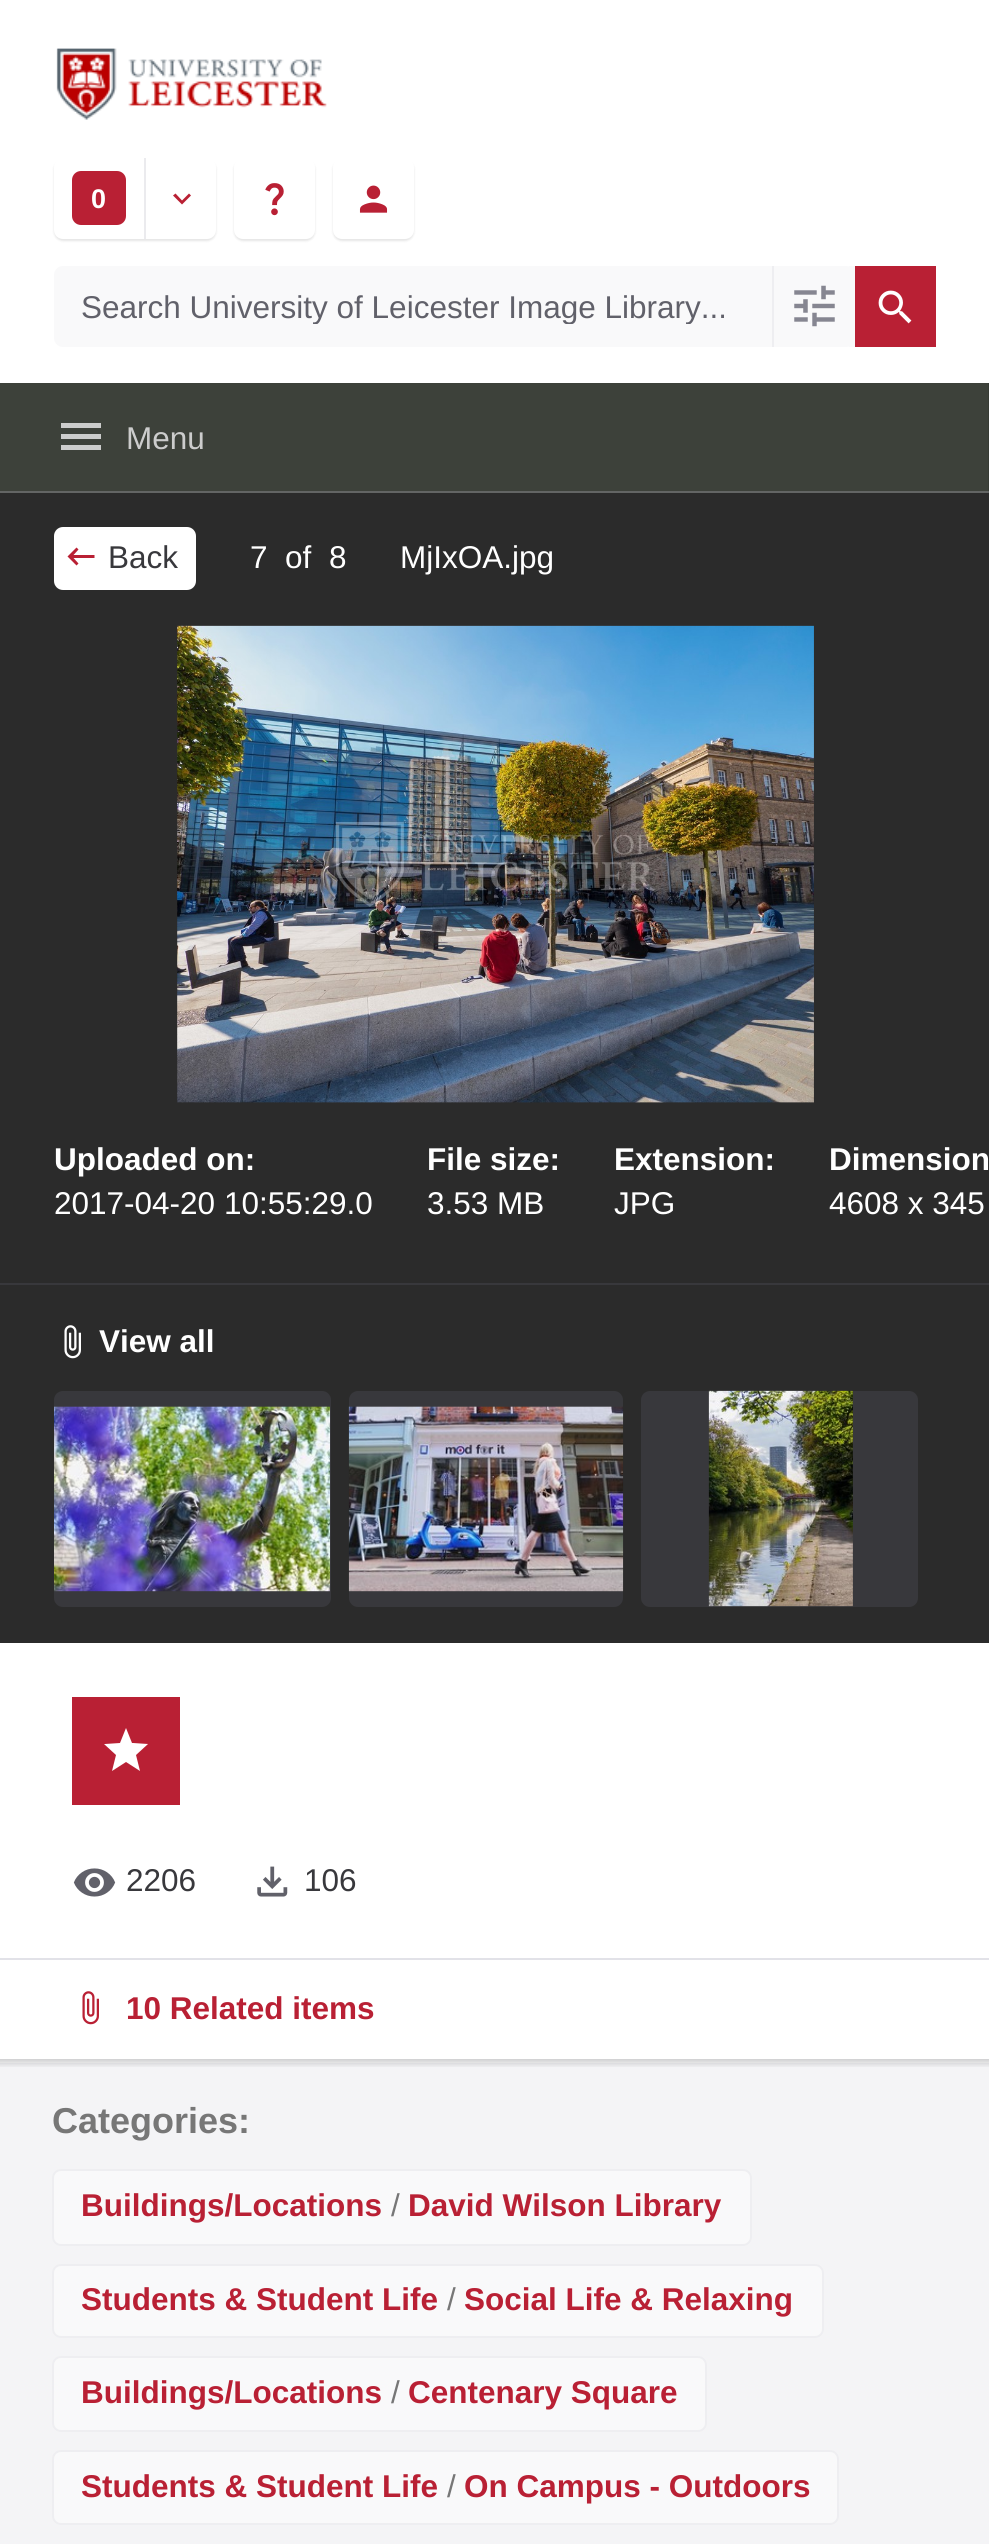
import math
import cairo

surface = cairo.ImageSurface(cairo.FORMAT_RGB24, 989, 2544)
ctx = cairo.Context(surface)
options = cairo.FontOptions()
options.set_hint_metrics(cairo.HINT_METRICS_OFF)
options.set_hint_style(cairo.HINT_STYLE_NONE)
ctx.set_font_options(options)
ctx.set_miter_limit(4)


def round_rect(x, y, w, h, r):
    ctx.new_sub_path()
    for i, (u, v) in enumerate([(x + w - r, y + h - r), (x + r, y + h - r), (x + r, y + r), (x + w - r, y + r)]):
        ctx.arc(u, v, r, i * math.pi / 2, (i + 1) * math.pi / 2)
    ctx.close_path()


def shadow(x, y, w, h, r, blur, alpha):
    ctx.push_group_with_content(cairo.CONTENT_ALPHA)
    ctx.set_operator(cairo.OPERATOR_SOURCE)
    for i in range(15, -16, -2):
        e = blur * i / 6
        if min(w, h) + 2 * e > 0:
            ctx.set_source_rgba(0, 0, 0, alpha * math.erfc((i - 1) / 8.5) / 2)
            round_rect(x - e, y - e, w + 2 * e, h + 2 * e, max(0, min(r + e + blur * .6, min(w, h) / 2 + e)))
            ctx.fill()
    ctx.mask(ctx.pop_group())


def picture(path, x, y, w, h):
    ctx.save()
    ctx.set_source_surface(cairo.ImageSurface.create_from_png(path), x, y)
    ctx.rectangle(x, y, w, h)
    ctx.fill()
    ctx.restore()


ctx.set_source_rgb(0.169, 0.169, 0.169)
ctx.paint()
ctx.set_source_rgb(1, 1, 1)
ctx.rectangle(0, 0, 989, 383)
ctx.fill()
picture("img1.png", 56, 48, 271, 72)
ctx.set_source_rgb(0, 0, 0)
shadow(54, 160, 162, 81, 9, 1, 0.1)
ctx.set_source_rgb(1, 1, 1)
ctx.new_path()
ctx.move_to(63, 158)
ctx.line_to(144, 158)
ctx.line_to(144, 239)
ctx.line_to(63, 239)
ctx.curve_to(58, 239, 54, 235, 54, 230)
ctx.line_to(54, 167)
ctx.curve_to(54, 162, 58, 158, 63, 158)
ctx.close_path()
ctx.fill()
ctx.set_source_rgb(0.725, 0.125, 0.204)
round_rect(72, 171, 54, 54, 9)
ctx.fill()
ctx.select_font_face("Liberation Sans", cairo.FONT_SLANT_NORMAL, cairo.FONT_WEIGHT_BOLD)
ctx.set_font_size(27)
ctx.set_source_rgb(1, 1, 1)
ctx.move_to(91, 208)
ctx.show_text("0")
ctx.new_path()
ctx.move_to(144, 158)
ctx.line_to(207, 158)
ctx.curve_to(212, 158, 216, 162, 216, 167)
ctx.line_to(216, 230)
ctx.curve_to(216, 235, 212, 239, 207, 239)
ctx.line_to(144, 239)
ctx.close_path()
ctx.fill()
ctx.set_source_rgb(0.918, 0.918, 0.933)
ctx.rectangle(144, 158, 2, 81)
ctx.fill()
ctx.set_source_rgb(0.725, 0.125, 0.204)
ctx.new_path()
ctx.move_to(175.5, 193.5)
ctx.line_to(182, 200.5)
ctx.line_to(189, 193.5)
ctx.line_to(191, 195.5)
ctx.line_to(182, 204.5)
ctx.line_to(173, 195.5)
ctx.close_path()
ctx.fill()
ctx.set_source_rgb(0, 0, 0)
shadow(234, 160, 81, 81, 9, 1, 0.1)
ctx.set_source_rgb(1, 1, 1)
round_rect(234, 158, 81, 81, 9)
ctx.fill()
picture("img2.png", 265, 183, 19, 33)
ctx.set_source_rgb(0, 0, 0)
shadow(333, 160, 81, 81, 9, 1, 0.1)
ctx.set_source_rgb(1, 1, 1)
round_rect(333, 158, 81, 81, 9)
ctx.fill()
picture("img3.png", 359, 185, 29, 28)
ctx.set_source_rgb(0.976, 0.976, 0.98)
round_rect(54, 266, 801, 81, 9)
ctx.fill()
ctx.save()
ctx.rectangle(81, 288, 691, 36)
ctx.clip()
ctx.select_font_face("Liberation Sans")
ctx.set_font_size(31.5)
ctx.set_source_rgb(0.38, 0.38, 0.416)
ctx.move_to(81, 318)
ctx.show_text("Search University of Leicester Image Library...")
ctx.restore()
ctx.rectangle(849, 266, 6, 81)
ctx.fill()
ctx.set_source_rgb(0.933, 0.933, 0.945)
ctx.rectangle(772, 266, 2, 81)
ctx.fill()
picture("img4.png", 794, 285, 41, 42)
ctx.set_source_rgb(0.725, 0.125, 0.204)
ctx.rectangle(855, 266, 81, 81)
ctx.fill()
picture("img5.png", 878, 290, 34, 34)
ctx.set_source_rgb(0.239, 0.255, 0.227)
ctx.rectangle(0, 383, 988, 108)
ctx.fill()
ctx.set_source_rgb(0.388, 0.396, 0.392)
ctx.rectangle(0, 491, 989, 2)
ctx.fill()
ctx.set_source_rgb(0.216, 0.231, 0.204)
ctx.rectangle(988, 383, 1, 110)
ctx.fill()
ctx.set_source_rgb(0.369, 0.38, 0.376)
ctx.rectangle(988, 491, 1, 2)
ctx.fill()
ctx.set_source_rgb(0.8, 0.8, 0.8)
ctx.new_path()
ctx.move_to(61, 423)
ctx.line_to(101, 423)
ctx.line_to(101, 428)
ctx.line_to(61, 428)
ctx.close_path()
ctx.move_to(61, 439)
ctx.line_to(61, 434)
ctx.line_to(101, 434)
ctx.line_to(101, 439)
ctx.close_path()
ctx.move_to(61, 450)
ctx.line_to(61, 445)
ctx.line_to(101, 445)
ctx.line_to(101, 450)
ctx.close_path()
ctx.fill()
ctx.select_font_face("Liberation Sans")
ctx.set_font_size(31.5)
ctx.move_to(126, 449)
ctx.show_text("Menu")
ctx.set_source_rgb(1, 1, 1)
round_rect(54, 527, 142, 63, 9)
ctx.fill()
ctx.set_source_rgb(0.725, 0.125, 0.204)
ctx.new_path()
ctx.move_to(94.5, 555)
ctx.line_to(94.5, 558)
ctx.line_to(73.5, 558)
ctx.line_to(78.5, 563.5)
ctx.line_to(76.5, 565.5)
ctx.line_to(67.5, 556.5)
ctx.line_to(76.5, 547.5)
ctx.line_to(78.5, 549.5)
ctx.line_to(73.5, 555)
ctx.close_path()
ctx.fill()
ctx.set_source_rgb(0.22, 0.22, 0.235)
ctx.move_to(108, 568)
ctx.show_text("Back")
ctx.set_source_rgb(1, 1, 1)
ctx.move_to(250, 568)
ctx.show_text("7")
ctx.move_to(285, 568)
ctx.show_text("of")
ctx.move_to(329, 568)
ctx.show_text("8")
ctx.move_to(400, 568)
ctx.show_text("MjIxOA.jpg")
picture("img6.png", 177, 625, 637, 478)
ctx.select_font_face("Liberation Sans", cairo.FONT_SLANT_NORMAL, cairo.FONT_WEIGHT_BOLD)
ctx.move_to(54, 1170)
ctx.show_text("Uploaded on:")
ctx.select_font_face("Liberation Sans")
ctx.move_to(54, 1214)
ctx.show_text("2017-04-20 10:55:29.0")
ctx.select_font_face("Liberation Sans", cairo.FONT_SLANT_NORMAL, cairo.FONT_WEIGHT_BOLD)
ctx.move_to(427, 1170)
ctx.show_text("File size:")
ctx.select_font_face("Liberation Sans")
ctx.move_to(427, 1214)
ctx.show_text("3.53 MB")
ctx.select_font_face("Liberation Sans", cairo.FONT_SLANT_NORMAL, cairo.FONT_WEIGHT_BOLD)
ctx.move_to(614, 1170)
ctx.show_text("Extension:")
ctx.select_font_face("Liberation Sans")
ctx.move_to(614, 1214)
ctx.show_text("JPG")
ctx.select_font_face("Liberation Sans", cairo.FONT_SLANT_NORMAL, cairo.FONT_WEIGHT_BOLD)
ctx.move_to(829, 1170)
ctx.show_text("Dimension")
ctx.select_font_face("Liberation Sans")
ctx.move_to(829, 1214)
ctx.show_text("4608 x 345")
ctx.set_source_rgb(0.22, 0.22, 0.235)
ctx.rectangle(0, 1283, 989, 2)
ctx.fill()
picture("img7.png", 64, 1325, 17, 34)
ctx.select_font_face("Liberation Sans", cairo.FONT_SLANT_NORMAL, cairo.FONT_WEIGHT_BOLD)
ctx.set_source_rgb(1, 1, 1)
ctx.move_to(99, 1352)
ctx.show_text("View all")
ctx.set_source_rgb(0.22, 0.22, 0.235)
round_rect(54, 1391, 277, 216, 9)
ctx.fill()
picture("img8.png", 54, 1406, 276, 186)
round_rect(349, 1391, 274, 216, 9)
ctx.fill()
picture("img9.png", 348, 1406, 276, 186)
round_rect(641, 1391, 277, 216, 9)
ctx.fill()
picture("img10.png", 708, 1390, 145, 217)
ctx.set_source_rgb(1, 1, 1)
ctx.rectangle(0, 1643, 989, 420)
ctx.fill()
ctx.set_source_rgb(0.725, 0.125, 0.204)
ctx.rectangle(72, 1697, 108, 108)
ctx.fill()
ctx.set_source_rgb(1, 1, 1)
ctx.new_path()
ctx.move_to(126, 1762)
ctx.line_to(112, 1771)
ctx.line_to(116, 1755)
ctx.line_to(104, 1744)
ctx.line_to(120, 1743)
ctx.line_to(126, 1728)
ctx.line_to(132, 1743)
ctx.line_to(148, 1744)
ctx.line_to(136, 1755)
ctx.line_to(140, 1771)
ctx.close_path()
ctx.fill()
picture("img11.png", 73, 1868, 43, 29)
ctx.select_font_face("Liberation Sans")
ctx.set_source_rgb(0.22, 0.22, 0.235)
ctx.move_to(126, 1891)
ctx.show_text("2206")
picture("img12.png", 257, 1866, 31, 31)
ctx.move_to(304, 1891)
ctx.show_text("106")
ctx.set_source_rgb(0.886, 0.886, 0.91)
ctx.rectangle(0, 1958, 989, 2)
ctx.fill()
picture("img13.png", 82, 1991, 17, 34)
ctx.select_font_face("Liberation Sans", cairo.FONT_SLANT_NORMAL, cairo.FONT_WEIGHT_BOLD)
ctx.set_source_rgb(0.725, 0.125, 0.204)
ctx.move_to(126, 2019)
ctx.show_text("10 Related items")
ctx.set_source_rgb(0.957, 0.957, 0.961)
ctx.rectangle(0, 2063, 989, 481)
ctx.fill()
gradient = cairo.LinearGradient(495, 2059, 495, 2068)
gradient.add_color_stop_rgba(0, 0.09, 0.09, 0.11, 0.2)
gradient.add_color_stop_rgba(1, 0.09, 0.09, 0.11, 0)
ctx.set_source(gradient)
ctx.rectangle(0, 2059, 989, 8)
ctx.fill()
ctx.set_font_size(36)
ctx.set_source_rgb(0.467, 0.467, 0.467)
ctx.move_to(52, 2133)
ctx.show_text("Categories:")
ctx.set_source_rgb(0.976, 0.976, 0.98)
round_rect(53, 2170, 698, 75, 8)
ctx.fill_preserve()
ctx.set_source_rgb(0.933, 0.933, 0.945)
ctx.stroke()
ctx.set_font_size(31.5)
ctx.set_source_rgb(0.725, 0.125, 0.204)
ctx.move_to(81, 2216)
ctx.show_text("Buildings/Locations")
ctx.select_font_face("Liberation Sans")
ctx.set_source_rgb(0.467, 0.467, 0.467)
ctx.move_to(391, 2216)
ctx.show_text("/")
ctx.select_font_face("Liberation Sans", cairo.FONT_SLANT_NORMAL, cairo.FONT_WEIGHT_BOLD)
ctx.set_source_rgb(0.725, 0.125, 0.204)
ctx.move_to(408, 2216)
ctx.show_text("David Wilson Library")
ctx.set_source_rgb(0.976, 0.976, 0.98)
round_rect(53, 2265, 770, 72, 8)
ctx.fill_preserve()
ctx.set_source_rgb(0.933, 0.933, 0.945)
ctx.stroke()
ctx.set_source_rgb(0.725, 0.125, 0.204)
ctx.move_to(81, 2310)
ctx.show_text("Students & Student Life")
ctx.select_font_face("Liberation Sans")
ctx.set_source_rgb(0.467, 0.467, 0.467)
ctx.move_to(447, 2310)
ctx.show_text("/")
ctx.select_font_face("Liberation Sans", cairo.FONT_SLANT_NORMAL, cairo.FONT_WEIGHT_BOLD)
ctx.set_source_rgb(0.725, 0.125, 0.204)
ctx.move_to(464, 2310)
ctx.show_text("Social Life & Relaxing")
ctx.set_source_rgb(0.976, 0.976, 0.98)
round_rect(53, 2357, 653, 74, 8)
ctx.fill_preserve()
ctx.set_source_rgb(0.933, 0.933, 0.945)
ctx.stroke()
ctx.set_source_rgb(0.725, 0.125, 0.204)
ctx.move_to(81, 2403)
ctx.show_text("Buildings/Locations")
ctx.select_font_face("Liberation Sans")
ctx.set_source_rgb(0.467, 0.467, 0.467)
ctx.move_to(391, 2403)
ctx.show_text("/")
ctx.select_font_face("Liberation Sans", cairo.FONT_SLANT_NORMAL, cairo.FONT_WEIGHT_BOLD)
ctx.set_source_rgb(0.725, 0.125, 0.204)
ctx.move_to(408, 2403)
ctx.show_text("Centenary Square")
ctx.set_source_rgb(0.976, 0.976, 0.98)
round_rect(53, 2451, 785, 73, 8)
ctx.fill_preserve()
ctx.set_source_rgb(0.933, 0.933, 0.945)
ctx.stroke()
ctx.set_source_rgb(0.725, 0.125, 0.204)
ctx.move_to(81, 2497)
ctx.show_text("Students & Student Life")
ctx.select_font_face("Liberation Sans")
ctx.set_source_rgb(0.467, 0.467, 0.467)
ctx.move_to(447, 2497)
ctx.show_text("/")
ctx.select_font_face("Liberation Sans", cairo.FONT_SLANT_NORMAL, cairo.FONT_WEIGHT_BOLD)
ctx.set_source_rgb(0.725, 0.125, 0.204)
ctx.move_to(464, 2497)
ctx.show_text("On Campus - Outdoors")
surface.write_to_png("page.png")
